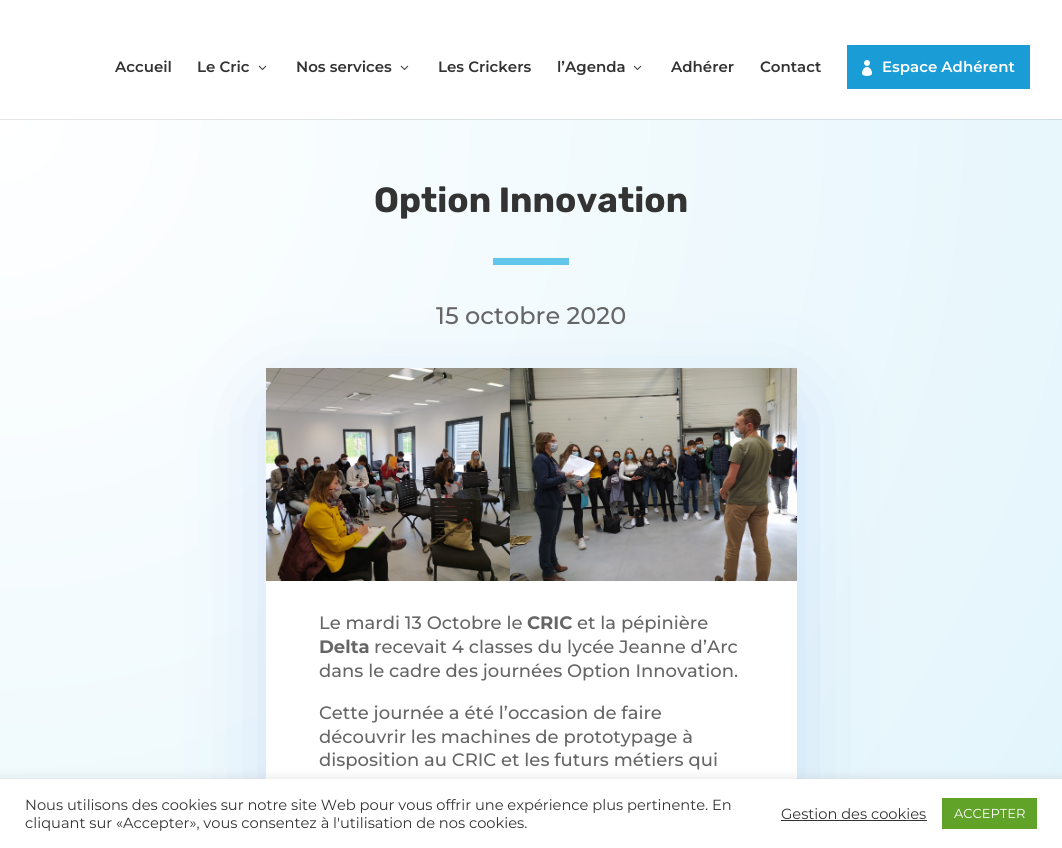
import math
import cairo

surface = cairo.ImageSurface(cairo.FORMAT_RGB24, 1062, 848)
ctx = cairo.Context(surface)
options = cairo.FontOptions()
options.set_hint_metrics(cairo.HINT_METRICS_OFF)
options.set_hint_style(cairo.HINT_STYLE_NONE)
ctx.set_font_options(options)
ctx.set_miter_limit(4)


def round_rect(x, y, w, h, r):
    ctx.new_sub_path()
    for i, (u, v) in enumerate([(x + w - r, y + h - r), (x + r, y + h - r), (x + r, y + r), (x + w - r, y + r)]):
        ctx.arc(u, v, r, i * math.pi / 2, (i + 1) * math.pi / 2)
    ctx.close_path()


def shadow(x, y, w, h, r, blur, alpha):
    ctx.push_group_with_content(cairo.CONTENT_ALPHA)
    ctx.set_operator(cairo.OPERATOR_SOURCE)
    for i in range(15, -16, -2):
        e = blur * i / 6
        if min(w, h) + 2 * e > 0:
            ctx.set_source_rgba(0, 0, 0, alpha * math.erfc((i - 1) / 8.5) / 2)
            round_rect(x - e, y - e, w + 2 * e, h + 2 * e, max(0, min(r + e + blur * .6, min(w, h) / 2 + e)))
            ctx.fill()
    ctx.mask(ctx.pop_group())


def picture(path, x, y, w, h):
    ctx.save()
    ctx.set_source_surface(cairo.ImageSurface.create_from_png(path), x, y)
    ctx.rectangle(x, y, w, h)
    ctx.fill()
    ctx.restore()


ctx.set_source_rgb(1, 1, 1)
ctx.paint()
ctx.select_font_face("Montserrat SemiBold")
ctx.set_font_size(15)
ctx.set_source_rgb(0.2, 0.2, 0.2)
ctx.move_to(115, 72)
ctx.show_text("Accueil")
ctx.move_to(197, 72)
ctx.show_text("Le Cric")
picture("img1.png", 258, 65, 9, 5)
ctx.move_to(296, 72)
ctx.show_text("Nos services")
picture("img1.png", 400, 65, 9, 5)
ctx.move_to(438, 72)
ctx.show_text("Les Crickers")
ctx.move_to(557, 72)
ctx.show_text("l’Agenda")
picture("img1.png", 633, 65, 9, 5)
ctx.move_to(671, 72)
ctx.show_text("Adhérer")
ctx.move_to(760, 72)
ctx.show_text("Contact")
ctx.set_source_rgb(0.102, 0.612, 0.839)
ctx.rectangle(847, 45, 183, 44)
ctx.fill()
picture("img2.png", 862, 60, 10, 16)
ctx.set_source_rgb(1, 1, 1)
ctx.move_to(882, 72)
ctx.show_text("Espace Adhérent")
gradient = cairo.RadialGradient(0, 119, 0, 0, 119, 1520)
gradient.add_color_stop_rgba(0, 1, 1, 1, 1)
gradient.add_color_stop_rgba(1, 0.867, 0.953, 0.984, 1)
ctx.set_source(gradient)
ctx.rectangle(0, 120, 1062, 659)
ctx.fill()
gradient = cairo.RadialGradient(0, 119, 0, 0, 119, 1520)
gradient.add_color_stop_rgba(0, 0.902, 0.902, 0.902, 1)
gradient.add_color_stop_rgba(1, 0.78, 0.859, 0.886, 1)
ctx.set_source(gradient)
ctx.rectangle(0, 119, 1062, 1)
ctx.fill()
ctx.select_font_face("Rubik", cairo.FONT_SLANT_NORMAL, cairo.FONT_WEIGHT_BOLD)
ctx.set_font_size(35)
ctx.set_source_rgb(0.2, 0.2, 0.2)
ctx.move_to(374, 212)
ctx.show_text("Option Innovation")
ctx.set_source_rgb(0.384, 0.776, 0.918)
ctx.rectangle(493, 258, 76, 7)
ctx.fill()
ctx.select_font_face("Montserrat Medium")
ctx.set_font_size(24)
ctx.set_source_rgb(0.4, 0.4, 0.4)
ctx.move_to(436, 324)
ctx.show_text("15 octobre 2020")
ctx.set_source_rgb(0, 0.278, 0.839)
shadow(280, 408, 503, 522, 0, 45, 0.18)
picture("img3.png", 266, 368, 531, 213)
ctx.set_source_rgb(1, 1, 1)
ctx.rectangle(266, 581, 531, 198)
ctx.fill()
ctx.set_font_size(18)
ctx.set_source_rgb(0.4, 0.4, 0.4)
ctx.move_to(319, 629)
ctx.show_text("Le mardi 13 Octobre le")
ctx.select_font_face("Montserrat", cairo.FONT_SLANT_NORMAL, cairo.FONT_WEIGHT_BOLD)
ctx.move_to(527, 629)
ctx.show_text("CRIC")
ctx.select_font_face("Montserrat Medium")
ctx.move_to(577, 629)
ctx.show_text("et la pépinière")
ctx.select_font_face("Montserrat", cairo.FONT_SLANT_NORMAL, cairo.FONT_WEIGHT_BOLD)
ctx.move_to(319, 653)
ctx.show_text("Delta")
ctx.select_font_face("Montserrat Medium")
ctx.move_to(374, 653)
ctx.show_text("recevait 4 classes du lycée Jeanne d’Arc")
ctx.move_to(319, 677)
ctx.show_text("dans le cadre des journées Option Innovation.")
ctx.move_to(319, 719)
ctx.show_text("Cette journée a été l’occasion de faire")
ctx.move_to(319, 743)
ctx.show_text("découvrir les machines de prototypage à")
ctx.move_to(319, 766)
ctx.show_text("disposition au CRIC et les futurs métiers qui")
ctx.set_source_rgb(0.675, 0.671, 0.671)
shadow(0, 778, 1062, 69, 0, 5, 0.3)
ctx.set_source_rgb(1, 1, 1)
ctx.rectangle(0, 779, 1062, 69)
ctx.fill()
ctx.select_font_face("Montserrat")
ctx.set_font_size(14.65)
ctx.set_source_rgb(0.2, 0.2, 0.2)
ctx.move_to(25, 810)
ctx.show_text("Nous utilisons des cookies sur notre site Web pour vous offrir une expérience plus pertinente. En")
ctx.move_to(25, 828)
ctx.show_text("cliquant sur «Accepter», vous consentez à l'utilisation de nos cookies.")
ctx.move_to(781, 819)
ctx.show_text("Gestion des cookies")
ctx.rectangle(781, 820, 146, 1)
ctx.fill()
ctx.set_source_rgb(0.38, 0.635, 0.161)
ctx.rectangle(942, 798, 95, 31)
ctx.fill()
ctx.set_font_size(13)
ctx.set_source_rgb(1, 1, 1)
ctx.move_to(954, 818)
ctx.show_text("ACCEPTER")
surface.write_to_png("page.png")
